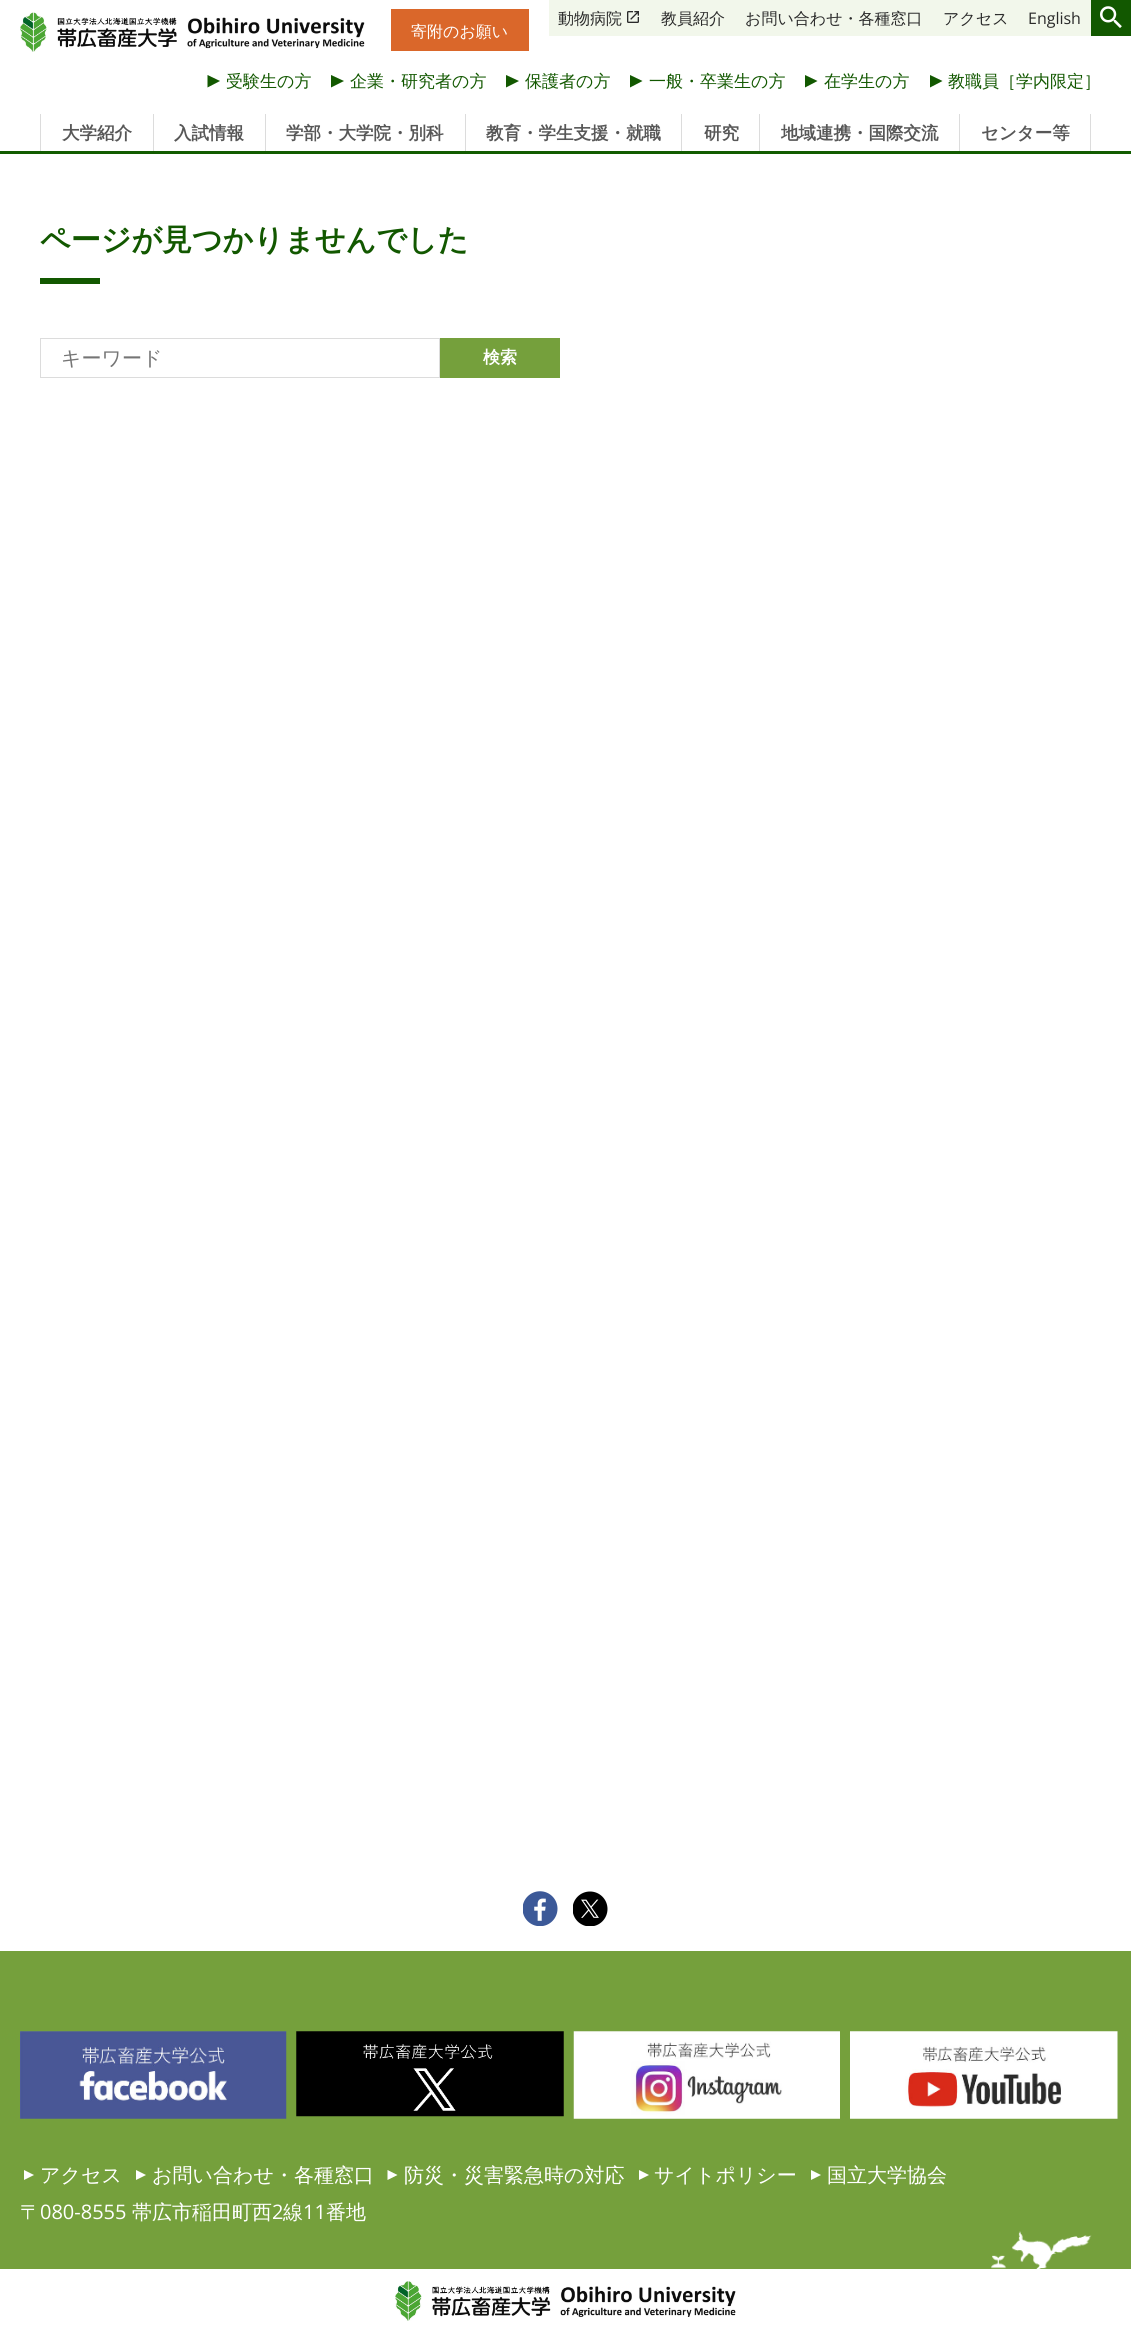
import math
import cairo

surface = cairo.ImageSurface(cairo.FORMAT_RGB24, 1131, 2333)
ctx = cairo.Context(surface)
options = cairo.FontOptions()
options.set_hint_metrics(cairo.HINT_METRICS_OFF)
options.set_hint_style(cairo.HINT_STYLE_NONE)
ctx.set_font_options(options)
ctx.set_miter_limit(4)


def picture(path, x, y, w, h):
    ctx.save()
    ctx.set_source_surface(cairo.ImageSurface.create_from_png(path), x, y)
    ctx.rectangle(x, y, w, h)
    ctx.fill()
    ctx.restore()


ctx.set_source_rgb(1, 1, 1)
ctx.paint()
ctx.set_source_rgb(0.071, 0.361, 0)
ctx.rectangle(0, 151, 1131, 3)
ctx.fill()
picture("img1.png", 20, 12, 345, 40)
ctx.set_source_rgb(0.855, 0.404, 0.165)
ctx.rectangle(391, 9, 138, 42)
ctx.fill()
ctx.select_font_face("WenQuanYi Zen Hei Medium")
ctx.set_font_size(16)
ctx.set_source_rgb(1, 1, 1)
ctx.move_to(411, 37)
ctx.show_text("寄附のお願い")
ctx.set_source_rgb(0.949, 0.965, 0.918)
ctx.rectangle(549, 0, 542, 36)
ctx.fill()
ctx.set_source_rgb(0.165, 0.165, 0.165)
ctx.move_to(558, 24)
ctx.show_text("動物病院")
picture("img2.png", 627, 11, 12, 12)
ctx.move_to(661, 24)
ctx.show_text("教員紹介")
ctx.move_to(745, 24)
ctx.show_text("お問い合わせ・各種窓口")
ctx.move_to(943, 24)
ctx.show_text("アクセス")
ctx.select_font_face("Open Sans")
ctx.move_to(1028, 24)
ctx.show_text("English")
ctx.set_source_rgb(0.071, 0.345, 0)
ctx.rectangle(1091, 0, 40, 36)
ctx.fill()
picture("img3.png", 1100, 6, 22, 22)
ctx.new_path()
ctx.move_to(207.5, 87.5)
ctx.line_to(207.5, 75)
ctx.line_to(220, 81)
ctx.close_path()
ctx.fill()
ctx.select_font_face("WenQuanYi Zen Hei Medium")
ctx.set_font_size(17)
ctx.move_to(226, 87)
ctx.show_text("受験生の方")
ctx.new_path()
ctx.move_to(331, 87.5)
ctx.line_to(331, 75)
ctx.line_to(344, 81)
ctx.close_path()
ctx.fill()
ctx.move_to(350, 87)
ctx.show_text("企業・研究者の方")
ctx.new_path()
ctx.move_to(506, 87.5)
ctx.line_to(506, 75)
ctx.line_to(519, 81)
ctx.close_path()
ctx.fill()
ctx.move_to(525, 87)
ctx.show_text("保護者の方")
ctx.new_path()
ctx.move_to(630, 87.5)
ctx.line_to(630, 75)
ctx.line_to(642.5, 81)
ctx.close_path()
ctx.fill()
ctx.move_to(649, 87)
ctx.show_text("一般・卒業生の方")
ctx.new_path()
ctx.move_to(805, 87.5)
ctx.line_to(805, 75)
ctx.line_to(817.5, 81)
ctx.close_path()
ctx.fill()
ctx.move_to(824, 87)
ctx.show_text("在学生の方")
ctx.new_path()
ctx.move_to(930, 87.5)
ctx.line_to(930, 75)
ctx.line_to(942.5, 81)
ctx.close_path()
ctx.fill()
ctx.move_to(948, 87)
ctx.show_text("教職員［学内限定］")
ctx.set_source_rgb(0.863, 0.863, 0.863)
ctx.rectangle(40, 114, 1, 37)
ctx.fill()
ctx.select_font_face("WenQuanYi Zen Hei", cairo.FONT_SLANT_NORMAL, cairo.FONT_WEIGHT_BOLD)
ctx.set_font_size(17.5)
ctx.set_source_rgb(0.341, 0.341, 0.341)
ctx.move_to(62, 139)
ctx.show_text("大学紹介")
ctx.set_source_rgb(0.863, 0.863, 0.863)
ctx.rectangle(153, 114, 1, 37)
ctx.fill()
ctx.set_source_rgb(0.341, 0.341, 0.341)
ctx.move_to(174, 139)
ctx.show_text("入試情報")
ctx.set_source_rgb(0.863, 0.863, 0.863)
ctx.rectangle(265, 114, 1, 37)
ctx.fill()
ctx.set_source_rgb(0.341, 0.341, 0.341)
ctx.move_to(286, 139)
ctx.show_text("学部・大学院・別科")
ctx.set_source_rgb(0.863, 0.863, 0.863)
ctx.rectangle(465, 114, 1, 37)
ctx.fill()
ctx.set_source_rgb(0.341, 0.341, 0.341)
ctx.move_to(486, 139)
ctx.show_text("教育・学生支援・就職")
ctx.set_source_rgb(0.863, 0.863, 0.863)
ctx.rectangle(681, 114, 1, 37)
ctx.fill()
ctx.set_source_rgb(0.341, 0.341, 0.341)
ctx.move_to(704, 139)
ctx.show_text("研究")
ctx.set_source_rgb(0.863, 0.863, 0.863)
ctx.rectangle(759, 114, 1, 37)
ctx.fill()
ctx.set_source_rgb(0.341, 0.341, 0.341)
ctx.move_to(781, 139)
ctx.show_text("地域連携・国際交流")
ctx.set_source_rgb(0.863, 0.863, 0.863)
ctx.rectangle(1090, 114, 1, 37)
ctx.fill()
ctx.rectangle(959, 114, 1, 37)
ctx.fill()
ctx.set_source_rgb(0.341, 0.341, 0.341)
ctx.move_to(981, 139)
ctx.show_text("センター等")
ctx.set_font_size(30)
ctx.set_source_rgb(0.071, 0.345, 0)
ctx.move_to(40, 250)
ctx.show_text("ページが見つかりませんでした")
ctx.rectangle(40, 278, 60, 6)
ctx.fill()
ctx.rectangle(40.5, 338.5, 399, 39)
ctx.set_source_rgb(0.863, 0.863, 0.863)
ctx.set_line_width(1)
ctx.stroke()
ctx.select_font_face("WenQuanYi Zen Hei Medium")
ctx.set_font_size(20)
ctx.set_source_rgb(0.459, 0.459, 0.459)
ctx.move_to(61, 365)
ctx.show_text("キーワード")
ctx.set_source_rgb(0.459, 0.627, 0.235)
ctx.rectangle(440, 338, 120, 40)
ctx.fill()
ctx.select_font_face("WenQuanYi Zen Hei", cairo.FONT_SLANT_NORMAL, cairo.FONT_WEIGHT_BOLD)
ctx.set_font_size(17)
ctx.set_source_rgb(1, 1, 1)
ctx.move_to(483, 363)
ctx.show_text("検索")
picture("img4.png", 523, 1891, 35, 35)
picture("img5.png", 573, 1891, 35, 35)
ctx.set_source_rgb(0.459, 0.627, 0.235)
ctx.rectangle(0, 1951, 1131, 318)
ctx.fill()
picture("img6.png", 20, 2031, 267, 88)
picture("img7.png", 296, 2031, 268, 86)
picture("img8.png", 573, 2031, 267, 88)
picture("img9.png", 850, 2031, 268, 88)
ctx.set_source_rgb(1, 1, 1)
ctx.new_path()
ctx.move_to(24, 2180)
ctx.line_to(24, 2170)
ctx.line_to(34, 2175)
ctx.close_path()
ctx.fill()
ctx.select_font_face("WenQuanYi Zen Hei Medium")
ctx.set_font_size(20)
ctx.move_to(40, 2182)
ctx.show_text("アクセス")
ctx.new_path()
ctx.move_to(136, 2180)
ctx.line_to(136, 2170)
ctx.line_to(146, 2175)
ctx.close_path()
ctx.fill()
ctx.move_to(152, 2182)
ctx.show_text("お問い合わせ・各種窓口")
ctx.new_path()
ctx.move_to(387.5, 2180)
ctx.line_to(387.5, 2170)
ctx.line_to(397.5, 2175)
ctx.close_path()
ctx.fill()
ctx.move_to(404, 2182)
ctx.show_text("防災・災害緊急時の対応")
ctx.new_path()
ctx.move_to(639, 2180)
ctx.line_to(639, 2170)
ctx.line_to(649, 2175)
ctx.close_path()
ctx.fill()
ctx.move_to(654, 2182)
ctx.show_text("サイトポリシー")
ctx.new_path()
ctx.move_to(811, 2180)
ctx.line_to(811, 2170)
ctx.line_to(821, 2175)
ctx.close_path()
ctx.fill()
ctx.move_to(827, 2182)
ctx.show_text("国立大学協会")
ctx.move_to(20, 2219)
ctx.show_text("〒")
ctx.select_font_face("Open Sans")
ctx.move_to(40, 2219)
ctx.show_text("080-8555")
ctx.select_font_face("WenQuanYi Zen Hei Medium")
ctx.move_to(132, 2219)
ctx.show_text("帯広市稲田町西")
ctx.select_font_face("Open Sans")
ctx.move_to(272, 2219)
ctx.show_text("2")
ctx.select_font_face("WenQuanYi Zen Hei Medium")
ctx.move_to(283, 2219)
ctx.show_text("線")
ctx.select_font_face("Open Sans")
ctx.move_to(303, 2219)
ctx.show_text("11")
ctx.select_font_face("WenQuanYi Zen Hei Medium")
ctx.move_to(326, 2219)
ctx.show_text("番地")
picture("img10.png", 991, 2231, 101, 38)
picture("img11.png", 395, 2281, 341, 40)
surface.write_to_png("page.png")
